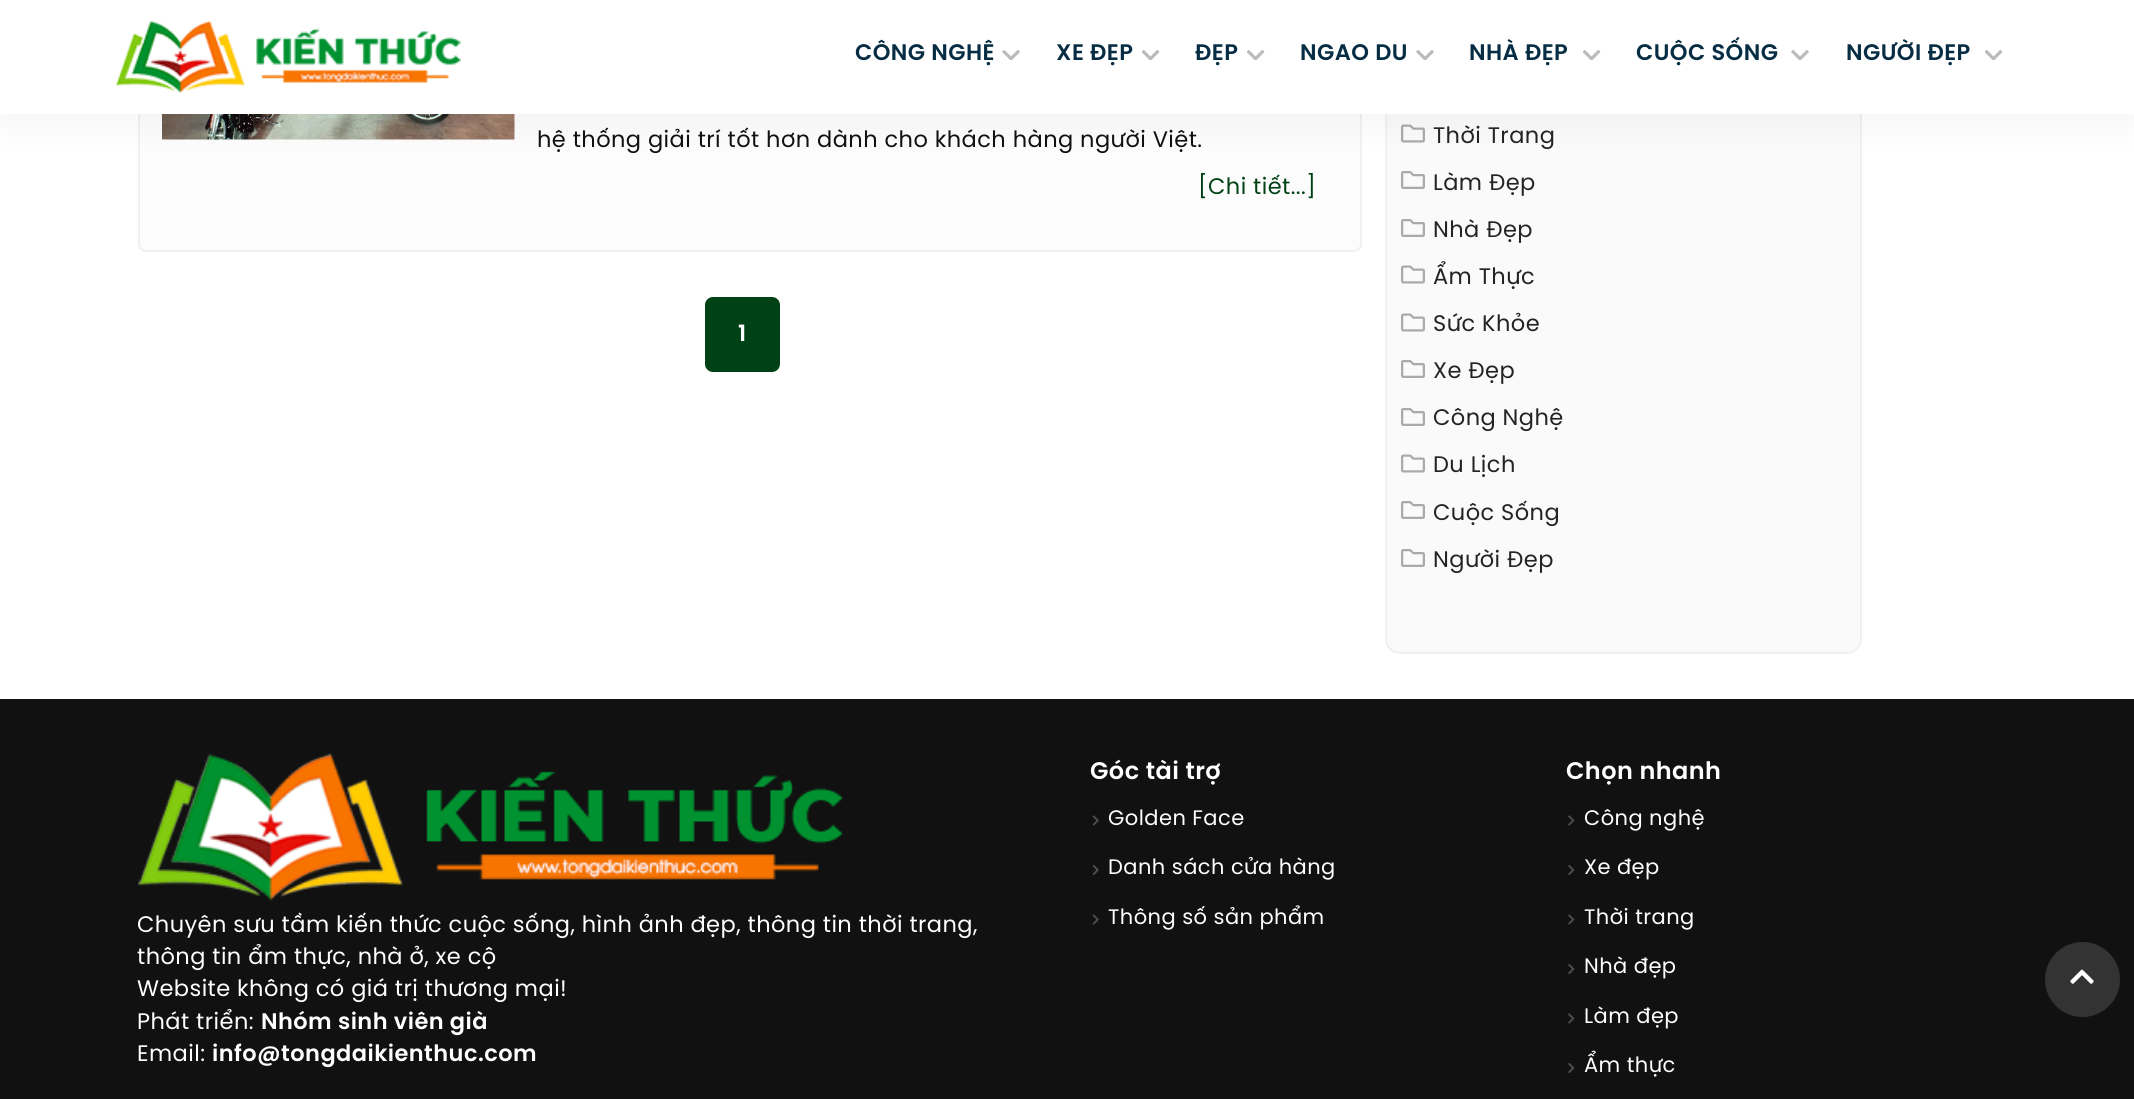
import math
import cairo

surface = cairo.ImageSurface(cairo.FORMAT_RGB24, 2134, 1099)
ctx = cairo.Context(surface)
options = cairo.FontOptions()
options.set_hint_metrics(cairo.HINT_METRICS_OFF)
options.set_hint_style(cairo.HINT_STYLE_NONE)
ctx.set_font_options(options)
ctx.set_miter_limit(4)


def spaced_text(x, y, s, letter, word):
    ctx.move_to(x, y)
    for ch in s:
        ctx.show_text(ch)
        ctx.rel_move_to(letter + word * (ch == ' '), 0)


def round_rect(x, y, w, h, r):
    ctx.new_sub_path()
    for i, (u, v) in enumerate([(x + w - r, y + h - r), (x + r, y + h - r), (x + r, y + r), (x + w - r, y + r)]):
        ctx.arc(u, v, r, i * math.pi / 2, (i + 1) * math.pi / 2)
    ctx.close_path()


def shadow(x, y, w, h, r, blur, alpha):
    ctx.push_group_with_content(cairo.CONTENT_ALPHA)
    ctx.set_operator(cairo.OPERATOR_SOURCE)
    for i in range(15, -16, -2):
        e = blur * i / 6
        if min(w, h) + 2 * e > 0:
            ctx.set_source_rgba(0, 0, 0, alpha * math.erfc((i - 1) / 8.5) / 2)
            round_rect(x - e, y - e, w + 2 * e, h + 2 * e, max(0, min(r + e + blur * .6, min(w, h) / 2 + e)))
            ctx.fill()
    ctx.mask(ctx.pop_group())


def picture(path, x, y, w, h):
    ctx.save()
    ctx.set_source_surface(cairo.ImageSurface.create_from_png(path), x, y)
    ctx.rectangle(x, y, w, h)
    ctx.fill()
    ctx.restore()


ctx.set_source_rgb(1, 1, 1)
ctx.paint()
ctx.set_source_rgb(0.988, 0.988, 0.988)
round_rect(139, -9, 1222, 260, 7)
ctx.fill_preserve()
ctx.set_source_rgb(0.941, 0.941, 0.941)
ctx.stroke()
ctx.set_source_rgb(1, 1, 1)
ctx.rectangle(162, 114, 353, 26)
ctx.fill()
picture("img4.png", 162, 114, 353, 26)
ctx.set_source_rgb(0.98, 0.98, 0.98)
round_rect(1386, -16, 475, 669, 14)
ctx.fill_preserve()
ctx.set_source_rgb(0.941, 0.941, 0.941)
ctx.stroke()
picture("img5.png", 1401, 124, 24, 19)
picture("img6.png", 1401, 171, 24, 18)
ctx.set_source_rgb(0, 0, 0)
shadow(0, 12, 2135, 114, 0, 19, 0.04)
ctx.set_source_rgb(1, 1, 1)
ctx.rectangle(0, 0, 2134, 114)
ctx.fill()
picture("img1.png", 115, 20, 346, 74)
ctx.select_font_face("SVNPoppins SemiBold")
ctx.set_font_size(22.5)
ctx.set_source_rgb(0.027, 0.176, 0.263)
spaced_text(855, 60, "CÔNG NGHỆ", 0.45, 0)
picture("img2.png", 1002, 50, 18, 10)
spaced_text(1056, 60, "XE ĐẸP", 0.45, 0)
picture("img3.png", 1142, 50, 18, 10)
spaced_text(1195, 60, "ĐẸP", 0.45, 0)
picture("img3.png", 1247, 50, 18, 10)
spaced_text(1300, 60, "NGAO DU", 0.45, 0)
picture("img2.png", 1416, 50, 18, 10)
spaced_text(1469, 60, "NHÀ ĐẸP", 0.45, 0)
picture("img3.png", 1583, 50, 18, 10)
spaced_text(1636, 60, "CUỘC SỐNG", 0.45, 0)
picture("img2.png", 1791, 50, 18, 10)
spaced_text(1846, 60, "NGƯỜI ĐẸP", 0.45, 0)
picture("img3.png", 1985, 50, 18, 10)
ctx.select_font_face("SVNPoppins")
ctx.set_source_rgb(0.067, 0.067, 0.067)
spaced_text(537, 147, "hệ thống giải trí tốt hơn dành cho khách hàng người Việt.", 0.45, 0)
ctx.set_source_rgb(0.004, 0.255, 0.086)
spaced_text(1198, 194, "[Chi tiết...]", 0.45, 0)
round_rect(705, 297, 75, 75, 8)
ctx.fill()
ctx.select_font_face("SVNPoppins SemiBold")
ctx.set_source_rgb(1, 1, 1)
spaced_text(738, 341, "1", 0.45, 0)
ctx.select_font_face("SVNPoppins")
ctx.set_source_rgb(0.137, 0.137, 0.137)
spaced_text(1433, 143, "Thời Trang", 0.45, 0)
spaced_text(1433, 190, "Làm Đẹp", 0.45, 0)
picture("img6.png", 1401, 219, 24, 18)
spaced_text(1433, 237, "Nhà Đẹp", 0.45, 0)
picture("img5.png", 1401, 265, 24, 19)
spaced_text(1433, 284, "Ẩm Thực", 0.45, 0)
picture("img5.png", 1401, 313, 24, 19)
spaced_text(1433, 331, "Sức Khỏe", 0.45, 0)
picture("img6.png", 1401, 360, 24, 18)
spaced_text(1433, 378, "Xe Đẹp", 0.45, 0)
picture("img6.png", 1401, 408, 24, 18)
spaced_text(1433, 425, "Công Nghệ", 0.45, 0)
picture("img5.png", 1401, 454, 24, 19)
spaced_text(1433, 472, "Du Lịch", 0.45, 0)
picture("img6.png", 1401, 501, 24, 18)
spaced_text(1433, 520, "Cuộc Sống", 0.45, 0)
picture("img6.png", 1401, 549, 24, 18)
spaced_text(1433, 567, "Người Đẹp", 0.45, 0)
ctx.set_source_rgb(0.067, 0.067, 0.067)
ctx.rectangle(0, 699, 2134, 400)
ctx.fill()
picture("img7.png", 138, 753, 705, 148)
ctx.set_source_rgb(1, 1, 1)
spaced_text(137, 932, "Chuyên sưu tầm kiến thức cuộc sống, hình ảnh đẹp, thông tin thời trang,", 0.45, 0)
spaced_text(137, 964, "thông tin ẩm thực, nhà ở, xe cộ", 0.45, 0)
spaced_text(137, 996, "Website không có giá trị thương mại!", 0.45, 0)
spaced_text(137, 1029, "Phát triển:", 0.45, 0)
ctx.select_font_face("SVNPoppins SemiBold")
spaced_text(261, 1029, "Nhóm sinh viên già", 0.45, 0)
ctx.select_font_face("SVNPoppins")
spaced_text(137, 1061, "Email:", 0.45, 0)
ctx.select_font_face("SVNPoppins SemiBold")
spaced_text(212, 1061, "info@tongdaikienthuc.com", 0.45, 0)
ctx.set_font_size(24)
spaced_text(1090, 779, "Góc tài trợ", 0.45, 0)
picture("img8.png", 1092, 815, 7, 11)
ctx.select_font_face("SVNPoppins")
ctx.set_font_size(21)
spaced_text(1108, 825, "Golden Face", 0.45, 0)
picture("img9.png", 1092, 865, 7, 10)
spaced_text(1108, 874, "Danh sách cửa hàng", 0.45, 0)
picture("img8.png", 1092, 914, 7, 11)
spaced_text(1108, 924, "Thông số sản phẩm", 0.45, 0)
ctx.select_font_face("SVNPoppins SemiBold")
ctx.set_font_size(24)
spaced_text(1566, 779, "Chọn nhanh", 0.45, 0)
picture("img10.png", 1568, 815, 7, 11)
ctx.select_font_face("SVNPoppins")
ctx.set_font_size(21)
spaced_text(1584, 825, "Công nghệ", 0.45, 0)
picture("img11.png", 1568, 865, 7, 10)
spaced_text(1584, 874, "Xe đẹp", 0.45, 0)
picture("img10.png", 1568, 914, 7, 11)
spaced_text(1584, 924, "Thời trang", 0.45, 0)
picture("img11.png", 1568, 964, 7, 10)
spaced_text(1584, 973, "Nhà đẹp", 0.45, 0)
picture("img10.png", 1568, 1013, 7, 11)
spaced_text(1584, 1023, "Làm đẹp", 0.45, 0)
picture("img11.png", 1568, 1063, 7, 10)
spaced_text(1584, 1072, "Ẩm thực", 0.45, 0)
ctx.set_source_rgb(0.2, 0.2, 0.2)
ctx.new_path()
ctx.arc(2082.5, 979.5, 37.5, 0, 2 * math.pi)
ctx.fill()
picture("img12.png", 2070, 969, 24, 15)
surface.write_to_png("page.png")
